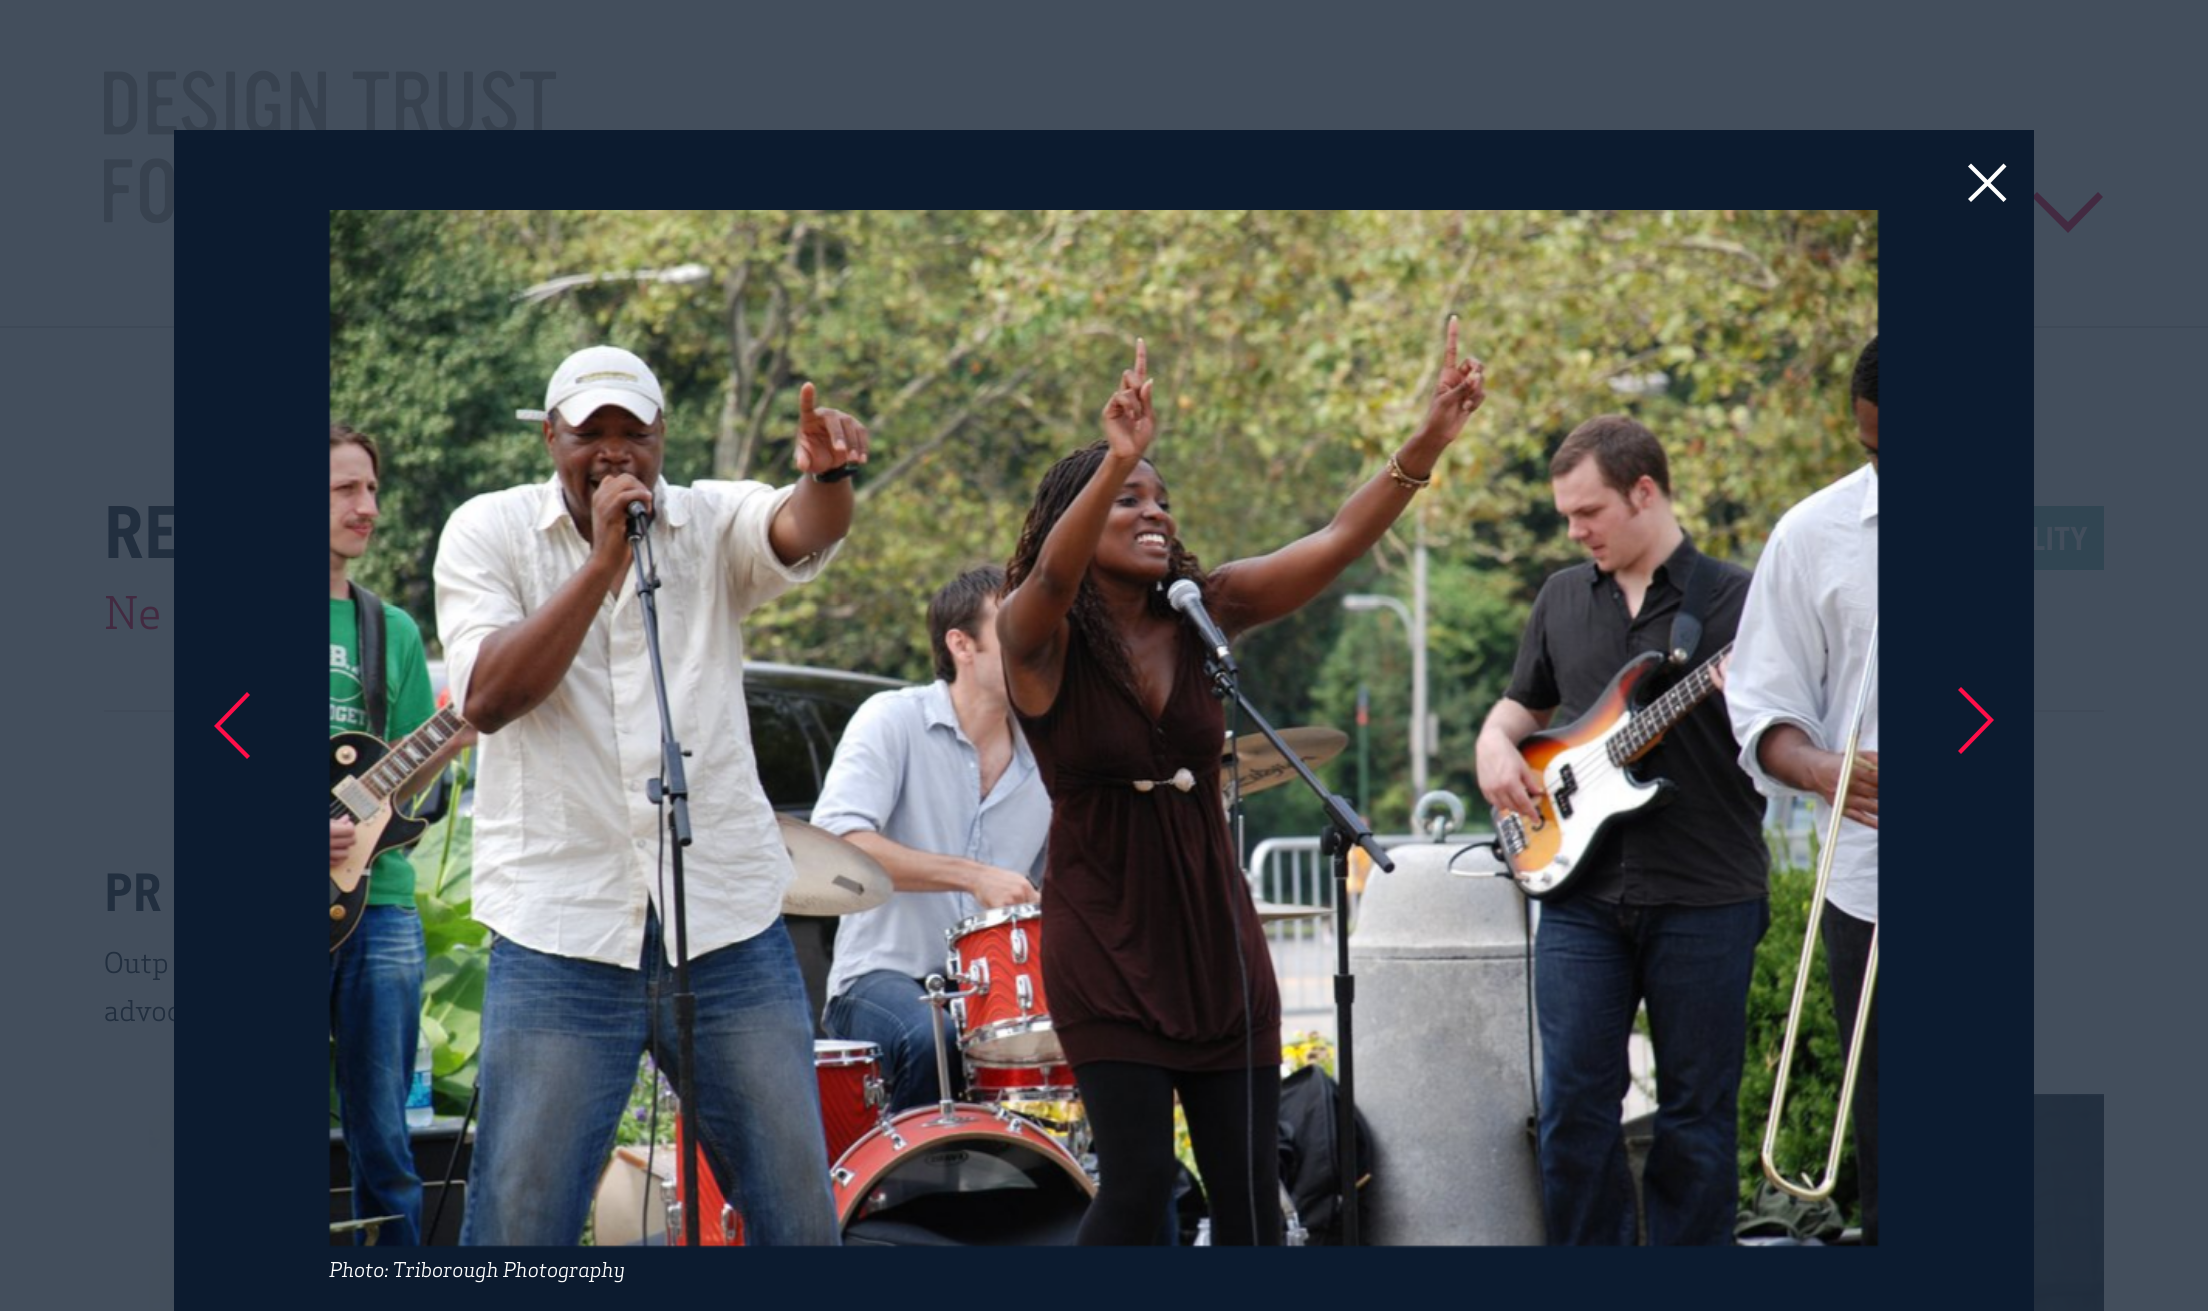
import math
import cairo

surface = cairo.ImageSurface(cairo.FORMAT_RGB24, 2208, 1311)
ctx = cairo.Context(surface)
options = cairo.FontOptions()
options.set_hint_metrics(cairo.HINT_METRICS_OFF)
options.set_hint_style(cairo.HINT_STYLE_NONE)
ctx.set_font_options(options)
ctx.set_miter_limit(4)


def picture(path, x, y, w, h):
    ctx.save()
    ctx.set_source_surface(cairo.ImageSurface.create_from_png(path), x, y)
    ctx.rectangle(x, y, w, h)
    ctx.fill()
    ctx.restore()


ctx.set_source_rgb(0.263, 0.306, 0.361)
ctx.paint()
ctx.set_source_rgb(0.243, 0.286, 0.341)
ctx.rectangle(0, 326, 2208, 2)
ctx.fill()
picture("img1.png", 104, 70, 453, 154)
ctx.set_source_rgb(0.263, 0.165, 0.255)
ctx.new_path()
ctx.move_to(2068, 222)
ctx.line_to(2098, 192)
ctx.line_to(2103, 197)
ctx.line_to(2068, 233)
ctx.line_to(2032, 197)
ctx.line_to(2037, 192)
ctx.close_path()
ctx.fill()
ctx.set_source_rgb(0.251, 0.29, 0.345)
ctx.rectangle(104, 710, 2000, 2)
ctx.fill()
ctx.select_font_face("Trade Gothic", cairo.FONT_SLANT_NORMAL, cairo.FONT_WEIGHT_BOLD)
ctx.set_font_size(72)
ctx.set_source_rgb(0.133, 0.184, 0.247)
ctx.move_to(104, 558)
ctx.show_text("RE")
ctx.select_font_face("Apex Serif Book")
ctx.set_font_size(44)
ctx.set_source_rgb(0.263, 0.165, 0.255)
ctx.move_to(104, 629)
ctx.show_text("Ne")
ctx.set_source_rgb(0.192, 0.271, 0.322)
ctx.rectangle(2034, 506, 70, 64)
ctx.fill()
ctx.select_font_face("Trade Gothic", cairo.FONT_SLANT_NORMAL, cairo.FONT_WEIGHT_BOLD)
ctx.set_font_size(32)
ctx.set_source_rgb(0.263, 0.306, 0.361)
ctx.move_to(2031, 550)
ctx.show_text("LITY")
ctx.set_font_size(52)
ctx.set_source_rgb(0.133, 0.184, 0.247)
ctx.move_to(104, 911)
ctx.show_text("PR")
ctx.select_font_face("Apex Serif Book")
ctx.set_font_size(28)
ctx.move_to(104, 973)
ctx.show_text("Outp")
ctx.move_to(104, 1021)
ctx.show_text("advoc")
picture("img2.png", 149, 1094, 25, 217)
picture("img3.png", 2034, 1094, 70, 217)
ctx.set_source_rgb(0.047, 0.106, 0.184)
ctx.rectangle(174, 130, 1860, 1181)
ctx.fill()
ctx.set_source_rgb(1, 1, 1)
ctx.new_path()
ctx.move_to(2003.5, 163.5)
ctx.line_to(2006.5, 166.5)
ctx.line_to(1990.5, 183)
ctx.line_to(2006.5, 199)
ctx.line_to(2003.5, 202)
ctx.line_to(1987.5, 186)
ctx.line_to(1971, 202)
ctx.line_to(1968, 199)
ctx.line_to(1984.5, 183)
ctx.line_to(1968, 166.5)
ctx.line_to(1971, 163.5)
ctx.line_to(1987.5, 180)
ctx.close_path()
ctx.fill()
ctx.set_source_rgb(1, 0.055, 0.286)
ctx.new_path()
ctx.move_to(247, 759)
ctx.line_to(214, 726)
ctx.line_to(247, 692)
ctx.line_to(250, 695)
ctx.line_to(220, 726)
ctx.line_to(250, 756)
ctx.close_path()
ctx.fill()
ctx.new_path()
ctx.move_to(1961, 687)
ctx.line_to(1994, 720)
ctx.line_to(1961, 754)
ctx.line_to(1958, 751)
ctx.line_to(1988, 720)
ctx.line_to(1958, 690)
ctx.close_path()
ctx.fill()
picture("img4.png", 329, 210, 1551, 1038)
ctx.select_font_face("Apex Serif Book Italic", cairo.FONT_SLANT_ITALIC)
ctx.set_font_size(20)
ctx.set_source_rgb(1, 1, 1)
ctx.move_to(329, 1277)
ctx.show_text("Photo: Triborough Photography")
surface.write_to_png("page.png")
